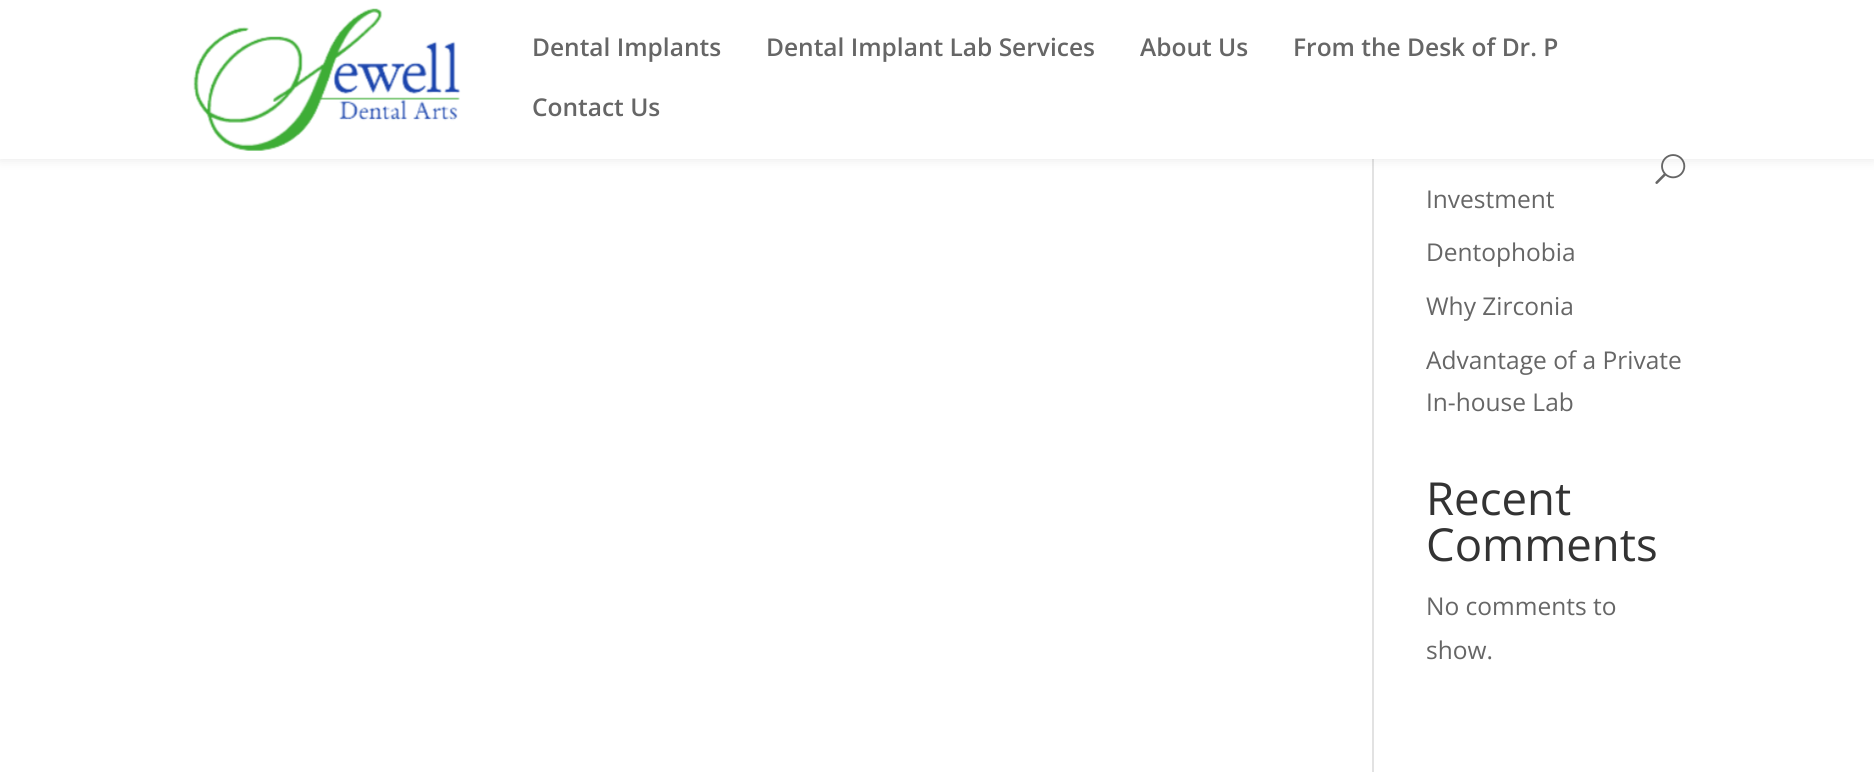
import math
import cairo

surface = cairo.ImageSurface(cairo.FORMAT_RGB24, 1874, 772)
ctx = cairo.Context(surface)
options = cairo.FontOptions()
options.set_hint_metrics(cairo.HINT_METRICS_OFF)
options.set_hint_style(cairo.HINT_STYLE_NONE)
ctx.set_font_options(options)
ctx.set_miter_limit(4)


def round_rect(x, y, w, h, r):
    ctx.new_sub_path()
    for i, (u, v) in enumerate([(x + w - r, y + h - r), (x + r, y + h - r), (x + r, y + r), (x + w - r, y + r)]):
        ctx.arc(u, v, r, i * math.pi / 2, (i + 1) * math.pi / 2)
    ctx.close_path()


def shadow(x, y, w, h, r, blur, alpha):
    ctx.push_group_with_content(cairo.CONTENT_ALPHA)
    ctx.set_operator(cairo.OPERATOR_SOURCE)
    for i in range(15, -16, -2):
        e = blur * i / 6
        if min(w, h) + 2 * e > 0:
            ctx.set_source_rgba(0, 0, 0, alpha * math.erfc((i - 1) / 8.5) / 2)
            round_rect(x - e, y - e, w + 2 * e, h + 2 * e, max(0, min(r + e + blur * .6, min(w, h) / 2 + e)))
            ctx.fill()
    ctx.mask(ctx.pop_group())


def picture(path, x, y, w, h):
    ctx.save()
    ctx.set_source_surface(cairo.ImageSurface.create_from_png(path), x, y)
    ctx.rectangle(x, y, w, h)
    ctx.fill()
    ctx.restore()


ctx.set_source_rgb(1, 1, 1)
ctx.paint()
ctx.set_source_rgb(0.886, 0.886, 0.886)
ctx.rectangle(1372, 159, 2, 613)
ctx.fill()
ctx.set_source_rgb(0, 0, 0)
shadow(0, 0, 1874, 159, 0, 6, 0.1)
ctx.set_source_rgb(1, 1, 1)
ctx.rectangle(0, 0, 1874, 159)
ctx.fill()
picture("img1.png", 193, 8, 268, 143)
ctx.select_font_face("Open Sans SemiBold")
ctx.set_font_size(24.5)
ctx.set_source_rgb(0.4, 0.4, 0.4)
ctx.move_to(532, 56)
ctx.show_text("Dental Implants")
ctx.move_to(766, 56)
ctx.show_text("Dental Implant Lab Services")
ctx.move_to(1140, 56)
ctx.show_text("About Us")
ctx.move_to(1293, 56)
ctx.show_text("From the Desk of Dr. P")
ctx.move_to(532, 116)
ctx.show_text("Contact Us")
picture("img2.png", 1655, 154, 31, 30)
ctx.select_font_face("Open Sans")
ctx.move_to(1426, 208)
ctx.show_text("Investment")
ctx.move_to(1426, 261)
ctx.show_text("Dentophobia")
ctx.move_to(1426, 315)
ctx.show_text("Why Zirconia")
ctx.move_to(1426, 369)
ctx.show_text("Advantage of a Private")
ctx.move_to(1426, 411)
ctx.show_text("In-house Lab")
ctx.set_font_size(45.5)
ctx.set_source_rgb(0.2, 0.2, 0.2)
ctx.move_to(1426, 515)
ctx.show_text("Recent")
ctx.move_to(1426, 561)
ctx.show_text("Comments")
ctx.set_font_size(24.5)
ctx.set_source_rgb(0.4, 0.4, 0.4)
ctx.move_to(1426, 615)
ctx.show_text("No comments to")
ctx.move_to(1426, 659)
ctx.show_text("show.")
surface.write_to_png("page.png")
